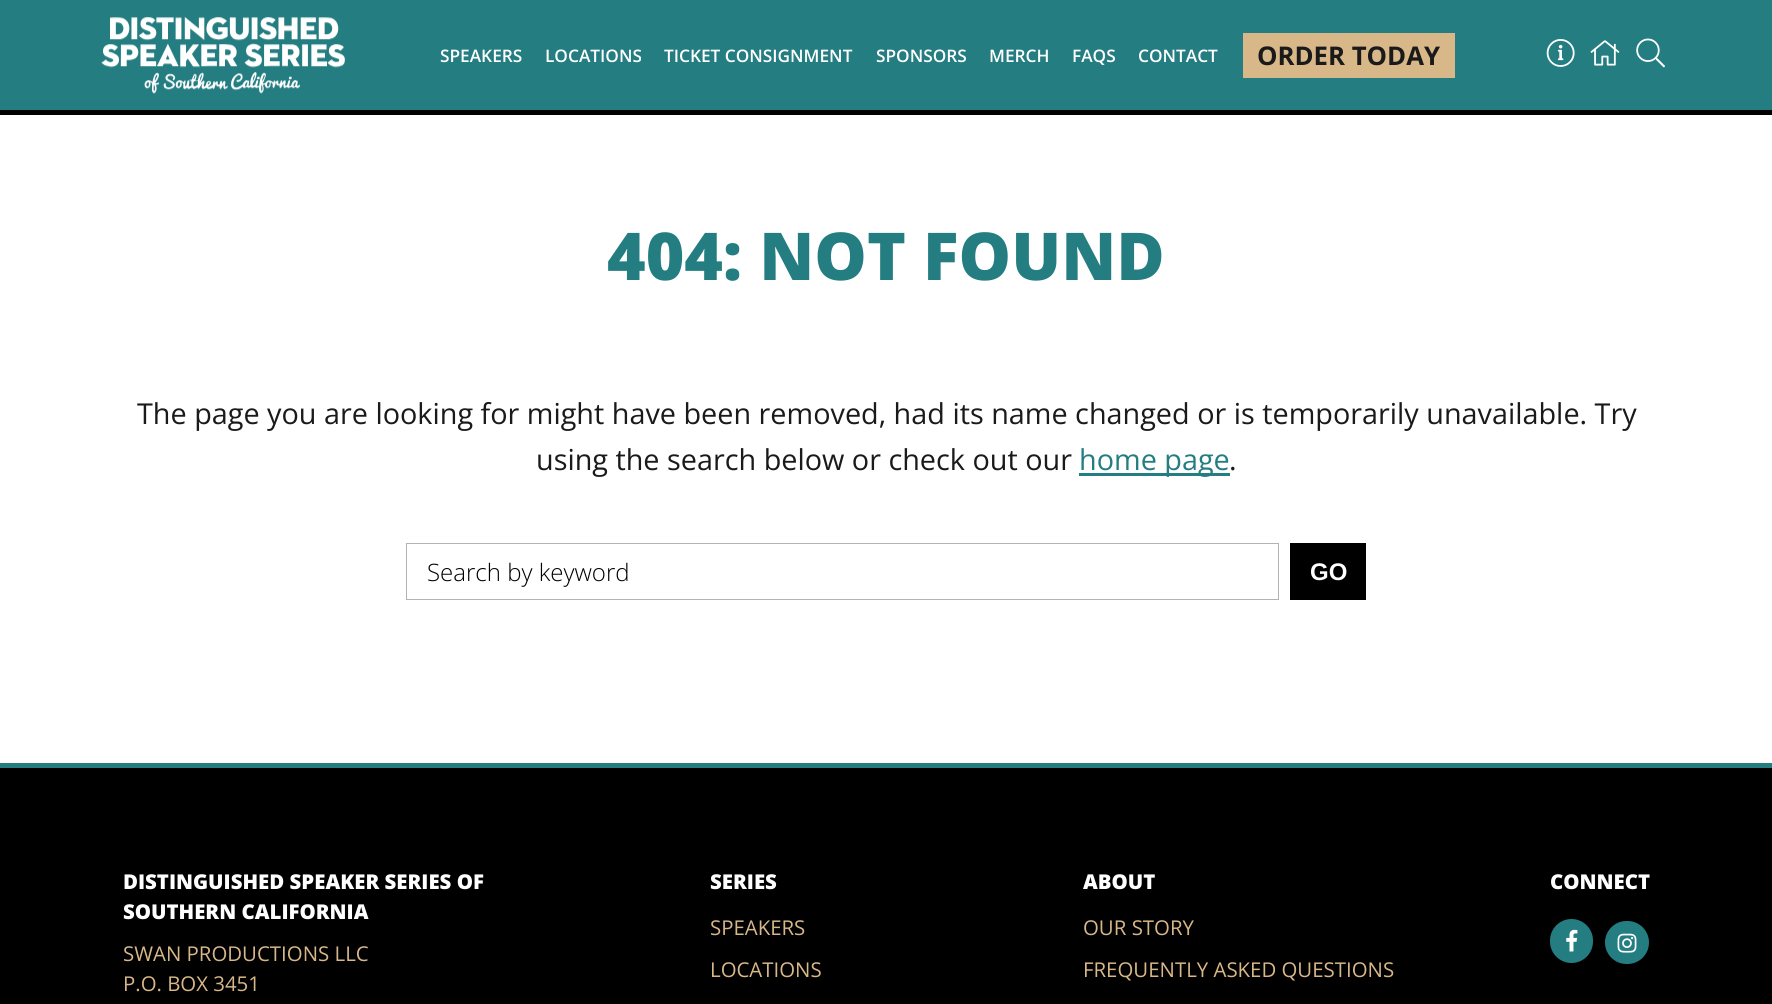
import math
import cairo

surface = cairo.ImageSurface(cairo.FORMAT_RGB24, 1772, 1004)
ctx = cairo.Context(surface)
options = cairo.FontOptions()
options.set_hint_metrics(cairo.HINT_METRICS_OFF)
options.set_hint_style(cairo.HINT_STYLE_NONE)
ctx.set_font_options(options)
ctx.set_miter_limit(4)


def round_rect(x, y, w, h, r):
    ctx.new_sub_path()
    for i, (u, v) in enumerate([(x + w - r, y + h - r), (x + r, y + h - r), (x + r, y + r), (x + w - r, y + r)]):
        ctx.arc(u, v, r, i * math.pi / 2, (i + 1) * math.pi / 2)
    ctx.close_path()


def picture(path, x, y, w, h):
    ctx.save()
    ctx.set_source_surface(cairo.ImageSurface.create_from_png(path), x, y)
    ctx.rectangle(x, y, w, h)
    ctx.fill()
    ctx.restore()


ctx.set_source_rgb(1, 1, 1)
ctx.paint()
ctx.set_source_rgb(0.141, 0.49, 0.506)
ctx.rectangle(0, 0, 1772, 110)
ctx.fill()
ctx.set_source_rgb(0, 0, 0)
ctx.rectangle(0, 110, 1772, 5)
ctx.fill()
picture("img1.png", 101, 16, 244, 78)
ctx.select_font_face("Open Sans SemiBold")
ctx.set_font_size(17.25)
ctx.set_source_rgb(1, 1, 1)
ctx.move_to(440, 62)
ctx.show_text("SPEAKERS")
ctx.move_to(545, 62)
ctx.show_text("LOCATIONS")
ctx.move_to(664, 62)
ctx.show_text("TICKET CONSIGNMENT")
ctx.move_to(876, 62)
ctx.show_text("SPONSORS")
ctx.move_to(989, 62)
ctx.show_text("MERCH")
ctx.move_to(1072, 62)
ctx.show_text("FAQS")
ctx.move_to(1138, 62)
ctx.show_text("CONTACT")
ctx.set_source_rgb(0.847, 0.722, 0.537)
ctx.rectangle(1243, 33, 212, 45)
ctx.fill()
ctx.select_font_face("Open Sans", cairo.FONT_SLANT_NORMAL, cairo.FONT_WEIGHT_BOLD)
ctx.set_font_size(25.75)
ctx.set_source_rgb(0.102, 0.102, 0.102)
ctx.move_to(1257, 65)
ctx.show_text("ORDER TODAY")
picture("img2.png", 1546, 39, 29, 28)
picture("img3.png", 1590, 40, 30, 26)
picture("img4.png", 1636, 38, 29, 30)
ctx.select_font_face("Open Sans ExtraBold")
ctx.set_font_size(66)
ctx.set_source_rgb(0.141, 0.49, 0.506)
ctx.move_to(607, 280)
ctx.show_text("404: NOT FOUND")
ctx.select_font_face("Open Sans")
ctx.set_font_size(28.8)
ctx.set_source_rgb(0.102, 0.102, 0.102)
ctx.move_to(137, 424)
ctx.show_text("The page you are looking for might have been removed, had its name changed or is temporarily unavailable. Try")
ctx.move_to(536, 470)
ctx.show_text("using the search below or check out our")
ctx.set_source_rgb(0.141, 0.49, 0.506)
ctx.rectangle(1079, 473, 151, 3)
ctx.fill()
ctx.move_to(1079, 470)
ctx.show_text("home page")
ctx.set_source_rgb(0.102, 0.102, 0.102)
ctx.move_to(1229, 470)
ctx.show_text(".")
ctx.rectangle(406.5, 543.5, 872, 56)
ctx.set_source_rgb(0.702, 0.702, 0.702)
ctx.set_line_width(1)
ctx.stroke()
ctx.select_font_face("Open Sans Light")
ctx.set_font_size(24)
ctx.set_source_rgb(0, 0, 0)
ctx.move_to(427, 581)
ctx.show_text("Search by keyword")
ctx.rectangle(1290, 543, 76, 57)
ctx.fill()
ctx.select_font_face("Liberation Sans", cairo.FONT_SLANT_NORMAL, cairo.FONT_WEIGHT_BOLD)
ctx.set_source_rgb(1, 1, 1)
ctx.move_to(1310, 580)
ctx.show_text("GO")
ctx.set_source_rgb(0, 0, 0)
ctx.rectangle(0, 768, 1772, 236)
ctx.fill()
ctx.set_source_rgb(0.141, 0.49, 0.506)
ctx.rectangle(0, 763, 1772, 5)
ctx.fill()
ctx.select_font_face("Open Sans ExtraBold")
ctx.set_font_size(20.4)
ctx.set_source_rgb(1, 1, 1)
ctx.move_to(123, 889)
ctx.show_text("DISTINGUISHED SPEAKER SERIES OF")
ctx.move_to(123, 919)
ctx.show_text("SOUTHERN CALIFORNIA")
ctx.select_font_face("Open Sans")
ctx.set_source_rgb(0.847, 0.722, 0.537)
ctx.move_to(123, 961)
ctx.show_text("SWAN PRODUCTIONS LLC")
ctx.move_to(123, 991)
ctx.show_text("P.O. BOX 3451")
ctx.select_font_face("Open Sans ExtraBold")
ctx.set_source_rgb(1, 1, 1)
ctx.move_to(710, 889)
ctx.show_text("SERIES")
ctx.select_font_face("Open Sans")
ctx.set_source_rgb(0.847, 0.722, 0.537)
ctx.move_to(710, 935)
ctx.show_text("SPEAKERS")
ctx.move_to(710, 977)
ctx.show_text("LOCATIONS")
ctx.select_font_face("Open Sans ExtraBold")
ctx.set_source_rgb(1, 1, 1)
ctx.move_to(1083, 889)
ctx.show_text("ABOUT")
ctx.select_font_face("Open Sans")
ctx.set_source_rgb(0.847, 0.722, 0.537)
ctx.move_to(1083, 935)
ctx.show_text("OUR STORY")
ctx.move_to(1083, 977)
ctx.show_text("FREQUENTLY ASKED QUESTIONS")
ctx.select_font_face("Open Sans ExtraBold")
ctx.set_source_rgb(1, 1, 1)
ctx.move_to(1550, 889)
ctx.show_text("CONNECT")
ctx.set_source_rgb(0.141, 0.49, 0.506)
round_rect(1550, 919, 43, 44, 21.5)
ctx.fill()
picture("img5.png", 1566, 929, 12, 23)
round_rect(1605, 921, 44, 43, 21.5)
ctx.fill()
picture("img6.png", 1617, 933, 20, 20)
surface.write_to_png("page.png")
